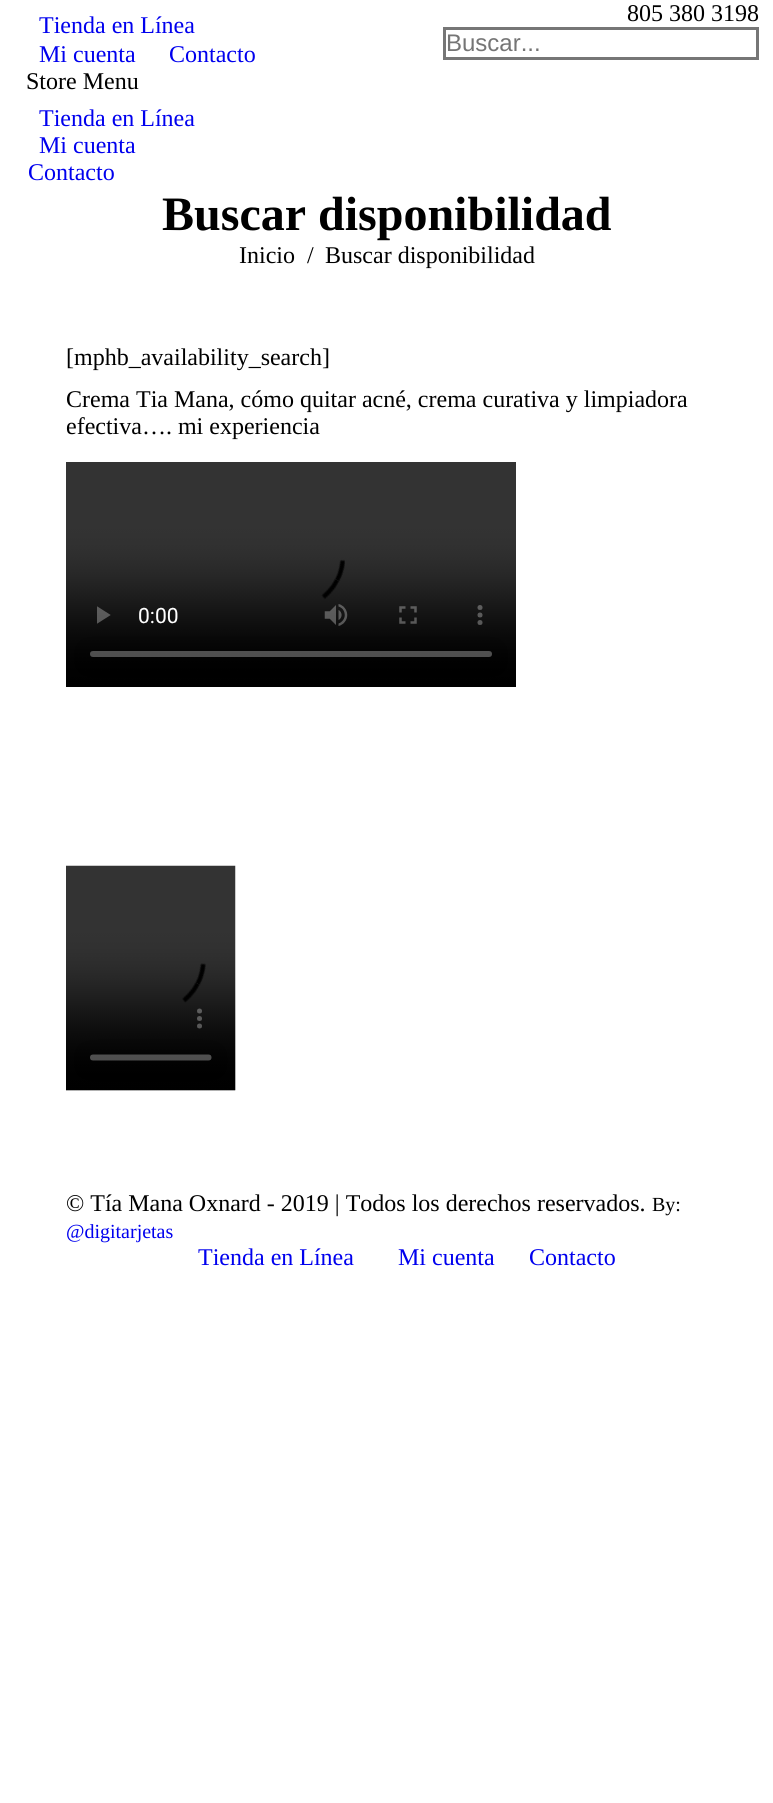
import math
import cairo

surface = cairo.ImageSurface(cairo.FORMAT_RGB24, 773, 1803)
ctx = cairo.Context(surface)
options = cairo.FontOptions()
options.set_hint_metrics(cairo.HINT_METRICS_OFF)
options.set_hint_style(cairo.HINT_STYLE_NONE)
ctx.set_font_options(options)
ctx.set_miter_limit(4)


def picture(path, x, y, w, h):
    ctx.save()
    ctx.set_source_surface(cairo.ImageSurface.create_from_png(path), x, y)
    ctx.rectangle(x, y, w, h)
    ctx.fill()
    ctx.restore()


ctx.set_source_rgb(1, 1, 1)
ctx.paint()
ctx.select_font_face("Liberation Serif")
ctx.set_font_size(24)
ctx.set_source_rgb(0, 0, 0.933)
ctx.move_to(39, 33)
ctx.show_text("Tienda en Línea")
ctx.move_to(39, 62)
ctx.show_text("Mi cuenta")
ctx.move_to(169, 62)
ctx.show_text("Contacto")
ctx.set_source_rgb(0, 0, 0)
ctx.move_to(26, 89)
ctx.show_text("Store Menu")
ctx.move_to(627, 21)
ctx.show_text("805 380 3198")
ctx.rectangle(444.5, 28.5, 313, 30)
ctx.set_source_rgb(0.463, 0.463, 0.463)
ctx.set_line_width(3)
ctx.stroke()
ctx.select_font_face("Liberation Sans")
ctx.set_source_rgb(0.459, 0.459, 0.459)
ctx.move_to(446, 51)
ctx.show_text("Buscar...")
ctx.select_font_face("Liberation Serif")
ctx.set_source_rgb(0, 0, 0.933)
ctx.move_to(39, 126)
ctx.show_text("Tienda en Línea")
ctx.move_to(39, 153)
ctx.show_text("Mi cuenta")
ctx.move_to(28, 180)
ctx.show_text("Contacto")
ctx.select_font_face("Liberation Serif", cairo.FONT_SLANT_NORMAL, cairo.FONT_WEIGHT_BOLD)
ctx.set_font_size(48)
ctx.set_source_rgb(0, 0, 0)
ctx.move_to(162, 230)
ctx.show_text("Buscar disponibilidad")
ctx.select_font_face("Liberation Serif")
ctx.set_font_size(24)
ctx.move_to(239, 263)
ctx.show_text("Inicio")
ctx.move_to(307, 263)
ctx.show_text("/")
ctx.move_to(325, 263)
ctx.show_text("Buscar disponibilidad")
ctx.move_to(66, 365)
ctx.show_text("[mphb_availability_search]")
ctx.move_to(66, 407)
ctx.show_text("Crema Tia Mana, cómo quitar acné, crema curativa y limpiadora")
ctx.move_to(66, 434)
ctx.show_text("efectiva…. mi experiencia")
picture("img1.png", 66, 462, 450, 225)
picture("img2.png", 66, 865, 170, 226)
ctx.move_to(66, 1211)
ctx.show_text("© Tía Mana Oxnard - 2019 | Todos los derechos reservados.")
ctx.set_font_size(20)
ctx.move_to(652, 1211)
ctx.show_text("By:")
ctx.set_source_rgb(0, 0, 0.933)
ctx.move_to(66, 1238)
ctx.show_text("@digitarjetas")
ctx.set_font_size(24)
ctx.move_to(198, 1265)
ctx.show_text("Tienda en Línea")
ctx.move_to(398, 1265)
ctx.show_text("Mi cuenta")
ctx.move_to(529, 1265)
ctx.show_text("Contacto")
surface.write_to_png("page.png")
